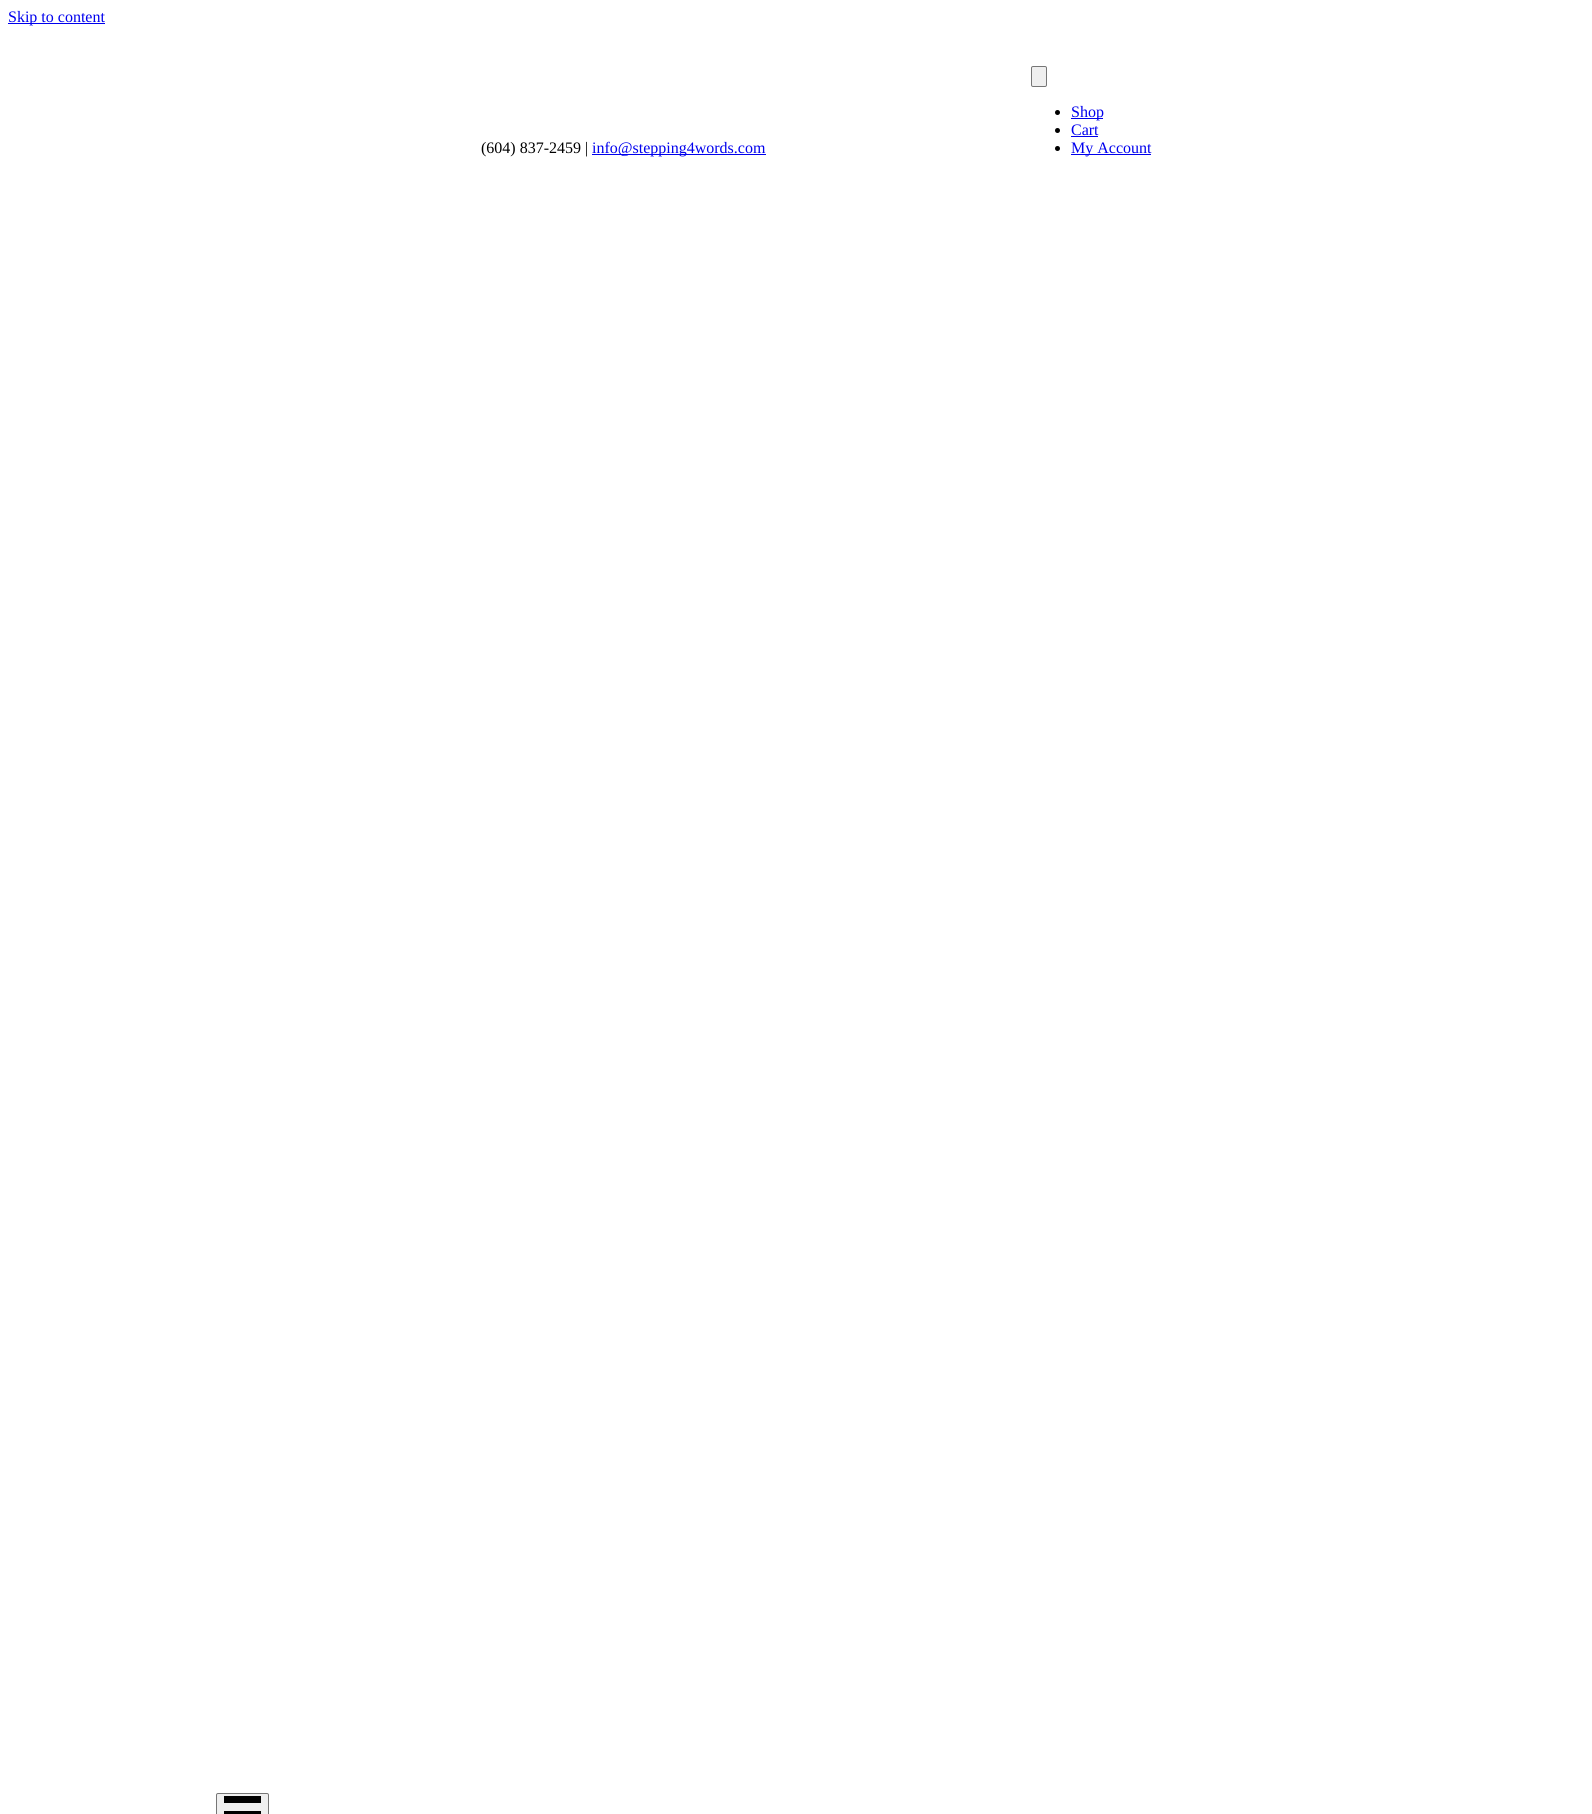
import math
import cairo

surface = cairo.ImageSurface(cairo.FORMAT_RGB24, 1592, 1814)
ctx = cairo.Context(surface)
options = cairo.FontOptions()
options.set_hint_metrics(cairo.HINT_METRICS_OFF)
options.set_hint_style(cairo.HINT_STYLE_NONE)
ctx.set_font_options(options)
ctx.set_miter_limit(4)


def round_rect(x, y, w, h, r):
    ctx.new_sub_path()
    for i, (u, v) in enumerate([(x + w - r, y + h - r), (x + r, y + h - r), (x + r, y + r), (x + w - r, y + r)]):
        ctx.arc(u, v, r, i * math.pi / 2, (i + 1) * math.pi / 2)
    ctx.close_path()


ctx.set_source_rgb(1, 1, 1)
ctx.paint()
ctx.set_source_rgb(0, 0, 0.933)
ctx.rectangle(8, 23, 97, 1)
ctx.fill()
ctx.select_font_face("Liberation Serif")
ctx.set_font_size(16)
ctx.move_to(8, 22)
ctx.show_text("Skip to content")
ctx.set_source_rgb(0, 0, 0)
ctx.move_to(481, 153)
ctx.show_text("(604) 837-2459 |")
ctx.set_source_rgb(0, 0, 0.933)
ctx.rectangle(592, 154, 174, 1)
ctx.fill()
ctx.move_to(592, 153)
ctx.show_text("info@stepping4words.com")
ctx.set_source_rgb(0.937, 0.937, 0.937)
round_rect(1031.5, 66.5, 15, 20, 1.5)
ctx.fill_preserve()
ctx.set_source_rgb(0.463, 0.463, 0.463)
ctx.set_line_width(1)
ctx.stroke()
ctx.set_source_rgb(0, 0, 0)
ctx.arc(1057.5, 112.5, 2.5, 0, 2 * math.pi)
ctx.fill()
ctx.set_source_rgb(0, 0, 0.933)
ctx.rectangle(1071, 118, 32, 1)
ctx.fill()
ctx.move_to(1071, 117)
ctx.show_text("Shop")
ctx.set_source_rgb(0, 0, 0)
ctx.new_path()
ctx.arc(1057.5, 130.5, 2.5, 0, 2 * math.pi)
ctx.fill()
ctx.set_source_rgb(0, 0, 0.933)
ctx.move_to(1071, 135)
ctx.show_text("Cart")
ctx.rectangle(1071, 136, 27, 1)
ctx.fill()
ctx.set_source_rgb(0, 0, 0)
ctx.arc(1057.5, 148.5, 2.5, 0, 2 * math.pi)
ctx.fill()
ctx.set_source_rgb(0, 0, 0.933)
ctx.rectangle(1071, 154, 80, 1)
ctx.fill()
ctx.move_to(1071, 153)
ctx.show_text("My Account")
ctx.set_source_rgb(0.937, 0.937, 0.937)
round_rect(216.5, 1793.5, 52, 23, 1.5)
ctx.fill_preserve()
ctx.set_source_rgb(0.463, 0.463, 0.463)
ctx.stroke()
ctx.set_source_rgb(0, 0, 0)
ctx.rectangle(224, 1796, 37, 7)
ctx.fill()
ctx.rectangle(224, 1811, 37, 3)
ctx.fill()
surface.write_to_png("page.png")
